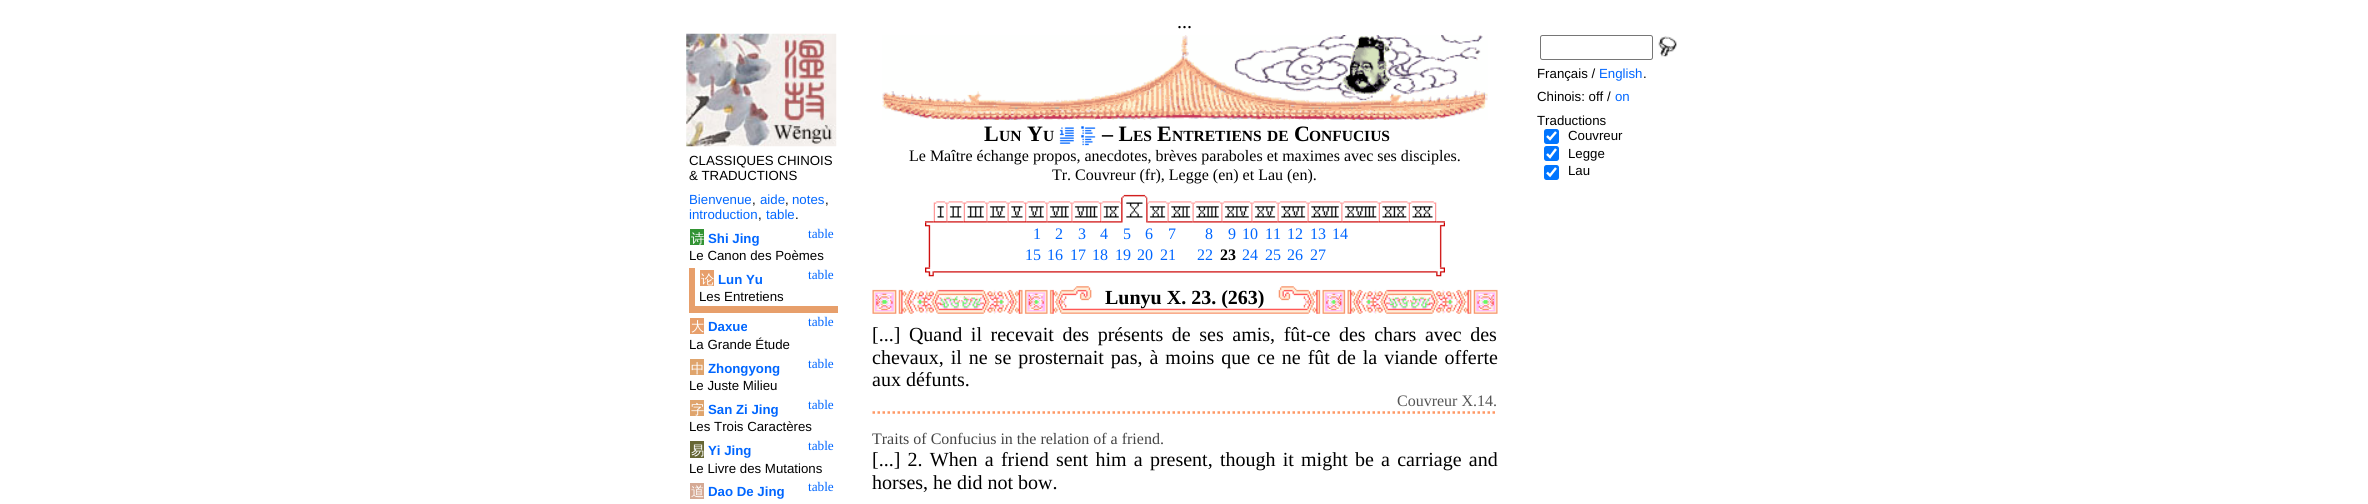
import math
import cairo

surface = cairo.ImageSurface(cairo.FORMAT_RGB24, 2368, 504)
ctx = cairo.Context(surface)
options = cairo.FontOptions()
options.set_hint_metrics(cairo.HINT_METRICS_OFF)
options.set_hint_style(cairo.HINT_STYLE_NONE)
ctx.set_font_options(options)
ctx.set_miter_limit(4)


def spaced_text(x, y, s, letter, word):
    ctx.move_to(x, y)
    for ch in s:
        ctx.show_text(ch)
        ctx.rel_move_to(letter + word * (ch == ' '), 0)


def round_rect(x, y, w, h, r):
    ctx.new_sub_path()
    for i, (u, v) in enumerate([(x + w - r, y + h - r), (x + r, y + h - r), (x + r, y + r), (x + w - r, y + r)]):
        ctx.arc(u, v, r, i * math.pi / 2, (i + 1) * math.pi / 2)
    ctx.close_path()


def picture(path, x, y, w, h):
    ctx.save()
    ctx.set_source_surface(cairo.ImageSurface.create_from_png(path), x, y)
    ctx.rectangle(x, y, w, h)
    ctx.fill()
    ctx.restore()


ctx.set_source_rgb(1, 1, 1)
ctx.paint()
ctx.select_font_face("Liberation Serif")
ctx.set_font_size(20)
ctx.set_source_rgb(0, 0, 0)
ctx.move_to(1177, 28)
ctx.show_text("...")
picture("img1.png", 686, 33, 151, 114)
ctx.select_font_face("Liberation Sans")
ctx.set_font_size(13.25)
ctx.move_to(689, 165)
ctx.show_text("CLASSIQUES CHINOIS")
ctx.move_to(689, 180)
ctx.show_text("& TRADUCTIONS")
ctx.set_source_rgb(0, 0.4, 1)
ctx.move_to(689, 204)
ctx.show_text("Bienvenue")
ctx.set_source_rgb(0, 0, 0)
ctx.move_to(752, 204)
ctx.show_text(",")
ctx.set_source_rgb(0, 0.4, 1)
ctx.move_to(760, 204)
ctx.show_text("aide")
ctx.set_source_rgb(0, 0, 0)
ctx.move_to(785, 204)
ctx.show_text(",")
ctx.set_source_rgb(0, 0.4, 1)
ctx.move_to(792, 204)
ctx.show_text("notes")
ctx.set_source_rgb(0, 0, 0)
ctx.move_to(825, 204)
ctx.show_text(",")
ctx.set_source_rgb(0, 0.4, 1)
ctx.move_to(689, 219)
ctx.show_text("introduction")
ctx.set_source_rgb(0, 0, 0)
ctx.move_to(758, 219)
ctx.show_text(",")
ctx.set_source_rgb(0, 0.4, 1)
ctx.move_to(766, 219)
ctx.show_text("table")
ctx.set_source_rgb(0, 0, 0)
ctx.move_to(795, 219)
ctx.show_text(".")
ctx.select_font_face("Liberation Serif")
ctx.set_source_rgb(0, 0.4, 1)
ctx.move_to(808, 238)
ctx.show_text("table")
ctx.set_source_rgb(0.196, 0.576, 0.2)
ctx.rectangle(690, 229, 14, 16)
ctx.fill()
ctx.select_font_face("WenQuanYi Zen Hei Medium")
ctx.set_source_rgb(1, 1, 1)
ctx.move_to(691, 243)
ctx.show_text("诗")
ctx.select_font_face("Liberation Sans", cairo.FONT_SLANT_NORMAL, cairo.FONT_WEIGHT_BOLD)
ctx.set_source_rgb(0, 0.4, 1)
ctx.move_to(708, 243)
ctx.show_text("Shi Jing")
ctx.select_font_face("Liberation Sans")
ctx.set_source_rgb(0, 0, 0)
ctx.move_to(689, 260)
ctx.show_text("Le Canon des Poèmes")
ctx.set_source_rgb(0.906, 0.624, 0.42)
ctx.rectangle(689, 306, 149, 7)
ctx.fill()
ctx.rectangle(689, 268, 6, 45)
ctx.fill()
ctx.rectangle(700, 270, 14, 16)
ctx.fill()
ctx.select_font_face("WenQuanYi Zen Hei Medium")
ctx.set_source_rgb(1, 1, 1)
ctx.move_to(701, 284)
ctx.show_text("论")
ctx.select_font_face("Liberation Sans", cairo.FONT_SLANT_NORMAL, cairo.FONT_WEIGHT_BOLD)
ctx.set_source_rgb(0, 0.4, 1)
ctx.move_to(718, 284)
ctx.show_text("Lun Yu")
ctx.select_font_face("Liberation Sans")
ctx.set_source_rgb(0, 0, 0)
ctx.move_to(699, 301)
ctx.show_text("Les Entretiens")
ctx.select_font_face("Liberation Serif")
ctx.set_source_rgb(0, 0.4, 1)
ctx.move_to(808, 279)
ctx.show_text("table")
ctx.set_source_rgb(0.906, 0.624, 0.42)
ctx.rectangle(690, 318, 14, 16)
ctx.fill()
ctx.select_font_face("WenQuanYi Zen Hei Medium")
ctx.set_source_rgb(1, 1, 1)
ctx.move_to(691, 331)
ctx.show_text("大")
ctx.select_font_face("Liberation Sans", cairo.FONT_SLANT_NORMAL, cairo.FONT_WEIGHT_BOLD)
ctx.set_source_rgb(0, 0.4, 1)
ctx.move_to(708, 331)
ctx.show_text("Daxue")
ctx.select_font_face("Liberation Sans")
ctx.set_source_rgb(0, 0, 0)
ctx.move_to(689, 349)
ctx.show_text("La Grande Étude")
ctx.select_font_face("Liberation Serif")
ctx.set_source_rgb(0, 0.4, 1)
ctx.move_to(808, 326)
ctx.show_text("table")
ctx.set_source_rgb(0.875, 0.643, 0.424)
ctx.rectangle(690, 359, 14, 16)
ctx.fill()
ctx.select_font_face("WenQuanYi Zen Hei Medium")
ctx.set_source_rgb(1, 1, 1)
ctx.move_to(691, 373)
ctx.show_text("中")
ctx.select_font_face("Liberation Sans", cairo.FONT_SLANT_NORMAL, cairo.FONT_WEIGHT_BOLD)
ctx.set_source_rgb(0, 0.4, 1)
ctx.move_to(708, 373)
ctx.show_text("Zhongyong")
ctx.select_font_face("Liberation Sans")
ctx.set_source_rgb(0, 0, 0)
ctx.move_to(689, 390)
ctx.show_text("Le Juste Milieu")
ctx.select_font_face("Liberation Serif")
ctx.set_source_rgb(0, 0.4, 1)
ctx.move_to(808, 368)
ctx.show_text("table")
ctx.set_source_rgb(0.875, 0.643, 0.424)
ctx.rectangle(690, 400, 14, 16)
ctx.fill()
ctx.select_font_face("WenQuanYi Zen Hei Medium")
ctx.set_source_rgb(1, 1, 1)
ctx.move_to(691, 414)
ctx.show_text("字")
ctx.select_font_face("Liberation Sans", cairo.FONT_SLANT_NORMAL, cairo.FONT_WEIGHT_BOLD)
ctx.set_source_rgb(0, 0.4, 1)
ctx.move_to(708, 414)
ctx.show_text("San Zi Jing")
ctx.select_font_face("Liberation Sans")
ctx.set_source_rgb(0, 0, 0)
ctx.move_to(689, 431)
ctx.show_text("Les Trois Caractères")
ctx.select_font_face("Liberation Serif")
ctx.set_source_rgb(0, 0.4, 1)
ctx.move_to(808, 409)
ctx.show_text("table")
ctx.move_to(808, 450)
ctx.show_text("table")
ctx.set_source_rgb(0.4, 0.4, 0.2)
ctx.rectangle(690, 441, 14, 17)
ctx.fill()
ctx.select_font_face("WenQuanYi Zen Hei Medium")
ctx.set_source_rgb(1, 1, 1)
ctx.move_to(691, 455)
ctx.show_text("易")
ctx.select_font_face("Liberation Sans", cairo.FONT_SLANT_NORMAL, cairo.FONT_WEIGHT_BOLD)
ctx.set_source_rgb(0, 0.4, 1)
ctx.move_to(708, 455)
ctx.show_text("Yi Jing")
ctx.select_font_face("Liberation Sans")
ctx.set_source_rgb(0, 0, 0)
ctx.move_to(689, 473)
ctx.show_text("Le Livre des Mutations")
ctx.set_source_rgb(0.835, 0.663, 0.58)
ctx.rectangle(690, 483, 14, 16)
ctx.fill()
ctx.select_font_face("WenQuanYi Zen Hei Medium")
ctx.set_source_rgb(1, 1, 1)
ctx.move_to(691, 496)
ctx.show_text("道")
ctx.select_font_face("Liberation Sans", cairo.FONT_SLANT_NORMAL, cairo.FONT_WEIGHT_BOLD)
ctx.set_source_rgb(0, 0.4, 1)
ctx.move_to(708, 496)
ctx.show_text("Dao De Jing")
ctx.select_font_face("Liberation Serif")
ctx.move_to(808, 491)
ctx.show_text("table")
picture("img2.png", 882, 35, 606, 85)
ctx.select_font_face("Liberation Serif", cairo.FONT_SLANT_NORMAL, cairo.FONT_WEIGHT_BOLD)
ctx.set_font_size(22)
ctx.set_source_rgb(0, 0, 0)
ctx.move_to(984, 141)
ctx.show_text("L")
ctx.set_font_size(15.5)
ctx.move_to(999, 141)
ctx.show_text("UN")
ctx.set_font_size(22)
ctx.move_to(1027, 141)
ctx.show_text("Y")
ctx.set_font_size(15.5)
ctx.move_to(1043, 141)
ctx.show_text("U")
picture("img3.png", 1059, 127, 15, 17)
picture("img4.png", 1081, 126, 15, 20)
ctx.set_font_size(22)
ctx.move_to(1102, 141)
ctx.show_text("– L")
ctx.set_font_size(15.5)
ctx.move_to(1133, 141)
ctx.show_text("ES")
ctx.set_font_size(22)
ctx.move_to(1157, 141)
ctx.show_text("E")
ctx.set_font_size(15.5)
ctx.move_to(1172, 141)
ctx.show_text("NTRETIENS")
ctx.move_to(1267, 141)
ctx.show_text("DE")
ctx.set_font_size(22)
ctx.move_to(1294, 141)
ctx.show_text("C")
ctx.set_font_size(15.5)
ctx.move_to(1309, 141)
ctx.show_text("ONFUCIUS")
ctx.select_font_face("Liberation Serif")
ctx.set_font_size(16)
ctx.move_to(909, 161)
ctx.show_text("Le Maître échange propos, anecdotes, brèves paraboles et maximes avec ses disciples.")
ctx.move_to(1052, 180)
ctx.show_text("Tr. Couvreur (fr), Legge (en) et Lau (en).")
picture("img5.png", 925, 221, 9, 2)
picture("img6.png", 933, 202, 2, 21)
picture("img7.png", 935, 201, 12, 22)
picture("img27.png", 946, 202, 2, 21)
picture("img8.png", 947, 201, 17, 22)
picture("img9.png", 965, 201, 22, 22)
picture("img27.png", 986, 202, 2, 21)
picture("img10.png", 987, 201, 21, 22)
picture("img29.png", 1007, 202, 2, 21)
picture("img11.png", 1008, 201, 17, 22)
picture("img30.png", 1025, 202, 2, 21)
picture("img12.png", 1026, 201, 21, 22)
picture("img27.png", 1046, 202, 2, 21)
picture("img13.png", 1047, 201, 25, 22)
picture("img27.png", 1071, 202, 2, 21)
picture("img14.png", 1072, 201, 28, 22)
picture("img30.png", 1100, 202, 2, 21)
picture("img15.png", 1101, 201, 21, 22)
picture("img16.png", 1121, 194, 27, 29)
picture("img17.png", 1147, 197, 21, 26)
picture("img29.png", 1167, 202, 2, 21)
picture("img18.png", 1168, 201, 25, 22)
picture("img29.png", 1192, 202, 2, 21)
picture("img19.png", 1193, 201, 29, 22)
picture("img27.png", 1221, 202, 2, 21)
picture("img20.png", 1222, 201, 30, 22)
picture("img27.png", 1251, 202, 2, 21)
picture("img21.png", 1252, 201, 26, 22)
picture("img29.png", 1277, 202, 2, 21)
picture("img22.png", 1278, 201, 30, 22)
picture("img29.png", 1307, 202, 2, 21)
picture("img23.png", 1308, 201, 34, 22)
picture("img27.png", 1341, 202, 2, 21)
picture("img24.png", 1342, 201, 37, 22)
picture("img25.png", 1380, 201, 29, 22)
picture("img26.png", 1410, 201, 25, 22)
picture("img28.png", 963, 202, 2, 21)
picture("img28.png", 1378, 202, 2, 21)
picture("img28.png", 1408, 202, 2, 21)
picture("img32.png", 1436, 221, 9, 2)
picture("img31.png", 1435, 202, 2, 21)
picture("img33.png", 925, 222, 6, 46)
ctx.set_source_rgb(0, 0.4, 1)
ctx.move_to(1033, 239)
ctx.show_text("1")
ctx.move_to(1055, 239)
ctx.show_text("2")
ctx.move_to(1078, 239)
ctx.show_text("3")
ctx.move_to(1100, 239)
ctx.show_text("4")
ctx.move_to(1123, 239)
ctx.show_text("5")
ctx.move_to(1145, 239)
ctx.show_text("6")
ctx.move_to(1168, 239)
ctx.show_text("7")
ctx.move_to(1205, 239)
ctx.show_text("8")
ctx.move_to(1228, 239)
ctx.show_text("9")
ctx.move_to(1242, 239)
ctx.show_text("10")
ctx.move_to(1265, 239)
ctx.show_text("11")
ctx.move_to(1287, 239)
ctx.show_text("12")
ctx.move_to(1310, 239)
ctx.show_text("13")
ctx.move_to(1332, 239)
ctx.show_text("14")
ctx.move_to(1025, 260)
ctx.show_text("15")
ctx.move_to(1047, 260)
ctx.show_text("16")
ctx.move_to(1070, 260)
ctx.show_text("17")
ctx.move_to(1092, 260)
ctx.show_text("18")
ctx.move_to(1115, 260)
ctx.show_text("19")
ctx.move_to(1137, 260)
ctx.show_text("20")
ctx.move_to(1160, 260)
ctx.show_text("21")
ctx.move_to(1197, 260)
ctx.show_text("22")
ctx.select_font_face("Liberation Serif", cairo.FONT_SLANT_NORMAL, cairo.FONT_WEIGHT_BOLD)
ctx.set_source_rgb(0, 0, 0)
ctx.move_to(1220, 260)
ctx.show_text("23")
ctx.select_font_face("Liberation Serif")
ctx.set_source_rgb(0, 0.4, 1)
ctx.move_to(1242, 260)
ctx.show_text("24")
ctx.move_to(1265, 260)
ctx.show_text("25")
ctx.move_to(1287, 260)
ctx.show_text("26")
ctx.move_to(1310, 260)
ctx.show_text("27")
picture("img34.png", 1439, 222, 6, 46)
picture("img36.png", 933, 271, 504, 2)
picture("img35.png", 925, 267, 9, 10)
picture("img37.png", 1436, 267, 9, 10)
picture("img38.png", 872, 286, 626, 28)
ctx.select_font_face("Liberation Serif", cairo.FONT_SLANT_NORMAL, cairo.FONT_WEIGHT_BOLD)
ctx.set_font_size(20)
ctx.set_source_rgb(0, 0, 0)
ctx.move_to(1105, 304)
ctx.show_text("Lunyu X. 23. (263)")
ctx.select_font_face("Liberation Serif")
spaced_text(872, 341, "[...] Quand il recevait des présents de ses amis, fût-ce des chars avec des", 0, 3.6)
spaced_text(872, 364, "chevaux, il ne se prosternait pas, à moins que ce ne fût de la viande offerte", 0, 2)
ctx.move_to(872, 386)
ctx.show_text("aux défunts.")
ctx.new_path()
ctx.move_to(872.5, 412.5)
ctx.line_to(1497.5, 412.5)
ctx.set_source_rgb(1, 0.6, 0.4)
ctx.set_line_width(2.5)
ctx.set_dash([2.5, 2.5])
ctx.stroke()
ctx.set_font_size(16)
ctx.set_source_rgb(0.333, 0.333, 0.333)
ctx.move_to(1397, 406)
ctx.show_text("Couvreur X.14.")
ctx.set_source_rgb(0.267, 0.267, 0.267)
ctx.move_to(872, 444)
ctx.show_text("Traits of Confucius in the relation of a friend.")
ctx.set_font_size(20)
ctx.set_source_rgb(0, 0, 0)
spaced_text(872, 466, "[...] 2. When a friend sent him a present, though it might be a carriage and", 0, 2.25)
ctx.move_to(872, 489)
ctx.show_text("horses, he did not bow.")
round_rect(1540.5, 35.5, 112, 24, 2)
ctx.set_source_rgb(0.463, 0.463, 0.463)
ctx.set_line_width(1)
ctx.set_dash([])
ctx.stroke()
picture("img39.png", 1658, 36, 19, 21)
ctx.select_font_face("Liberation Sans")
ctx.set_font_size(13.25)
ctx.set_source_rgb(0, 0, 0)
ctx.move_to(1537, 78)
ctx.show_text("Français /")
ctx.set_source_rgb(0, 0.4, 1)
ctx.move_to(1599, 78)
ctx.show_text("English")
ctx.set_source_rgb(0, 0, 0)
ctx.move_to(1643, 78)
ctx.show_text(".")
ctx.move_to(1537, 101)
ctx.show_text("Chinois: off /")
ctx.set_source_rgb(0, 0.4, 1)
ctx.move_to(1615, 101)
ctx.show_text("on")
ctx.set_source_rgb(0, 0, 0)
ctx.move_to(1537, 125)
ctx.show_text("Traductions")
ctx.set_source_rgb(0, 0.459, 1)
round_rect(1544, 129, 15, 15, 2.5)
ctx.fill()
ctx.new_path()
ctx.move_to(1547, 136)
ctx.line_to(1550, 139)
ctx.line_to(1556, 132)
ctx.set_source_rgb(1, 1, 1)
ctx.set_line_width(2.4)
ctx.stroke()
ctx.set_source_rgb(0, 0, 0)
ctx.move_to(1568, 140)
ctx.show_text("Couvreur")
ctx.set_source_rgb(0, 0.459, 1)
round_rect(1544, 146, 15, 15, 2.5)
ctx.fill()
ctx.new_path()
ctx.move_to(1547, 154)
ctx.line_to(1550, 157)
ctx.line_to(1556, 149)
ctx.set_source_rgb(1, 1, 1)
ctx.stroke()
ctx.set_source_rgb(0, 0, 0)
ctx.move_to(1568, 158)
ctx.show_text("Legge")
ctx.set_source_rgb(0, 0.459, 1)
round_rect(1544, 165, 15, 15, 2.5)
ctx.fill()
ctx.new_path()
ctx.move_to(1547, 172.5)
ctx.line_to(1550, 175.5)
ctx.line_to(1556, 168)
ctx.set_source_rgb(1, 1, 1)
ctx.stroke()
ctx.set_source_rgb(0, 0, 0)
ctx.move_to(1568, 175)
ctx.show_text("Lau")
surface.write_to_png("page.png")
